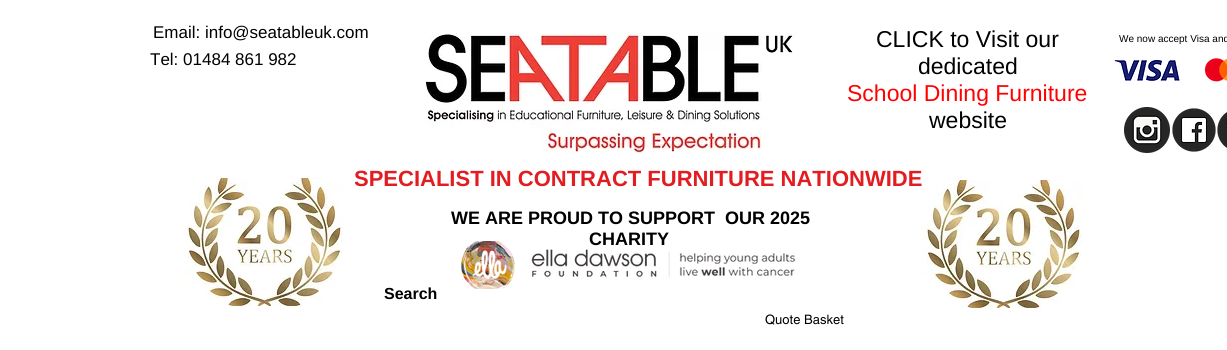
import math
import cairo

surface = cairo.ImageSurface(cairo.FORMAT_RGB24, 1227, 350)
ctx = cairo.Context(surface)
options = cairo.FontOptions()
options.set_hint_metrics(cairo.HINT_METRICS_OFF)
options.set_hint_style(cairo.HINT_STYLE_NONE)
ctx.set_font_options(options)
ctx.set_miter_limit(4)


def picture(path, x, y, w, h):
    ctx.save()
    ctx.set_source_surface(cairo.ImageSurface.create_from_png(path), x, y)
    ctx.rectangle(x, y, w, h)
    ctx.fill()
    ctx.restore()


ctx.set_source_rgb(1, 1, 1)
ctx.paint()
ctx.select_font_face("Liberation Sans")
ctx.set_font_size(17)
ctx.set_source_rgb(0, 0, 0)
ctx.move_to(153, 38)
ctx.show_text("Email: info@seatableuk.com")
picture("img1.png", 426, 33, 371, 121)
ctx.set_font_size(23)
ctx.move_to(876, 47)
ctx.show_text("CLICK to Visit our")
ctx.move_to(918, 74)
ctx.show_text("dedicated")
ctx.set_source_rgb(1, 0.004, 0.004)
ctx.move_to(847, 101)
ctx.show_text("School Dining Furniture")
ctx.set_source_rgb(0, 0, 0)
ctx.move_to(929, 128)
ctx.show_text("website")
ctx.set_font_size(10)
ctx.move_to(1119, 42)
ctx.show_text("We now accept Visa and")
ctx.set_font_size(17)
ctx.move_to(150, 65)
ctx.show_text("Tel: 01484 861 982")
picture("img2.png", 1114, 60, 66, 21)
picture("img3.png", 1204, 58, 23, 24)
picture("img4.png", 1124, 107, 46, 46)
picture("img5.png", 1172, 108, 44, 44)
picture("img6.png", 1217, 112, 10, 36)
ctx.select_font_face("Liberation Sans", cairo.FONT_SLANT_NORMAL, cairo.FONT_WEIGHT_BOLD)
ctx.set_font_size(22)
ctx.set_source_rgb(0.886, 0.11, 0.129)
ctx.move_to(354, 186)
ctx.show_text("SPECIALIST IN CONTRACT FURNITURE NATIONWIDE")
picture("img7.png", 183, 178, 172, 128)
picture("img8.png", 922, 180, 160, 128)
ctx.set_font_size(18)
ctx.set_source_rgb(0, 0, 0)
ctx.move_to(451, 224)
ctx.show_text("WE ARE PROUD TO SUPPORT  OUR 2025")
ctx.move_to(589, 245)
ctx.show_text("CHARITY")
picture("img9.png", 461, 241, 335, 48)
ctx.set_font_size(16)
ctx.move_to(384, 299)
ctx.show_text("Search")
ctx.select_font_face("helvetica")
ctx.set_font_size(13)
ctx.move_to(765, 324)
ctx.show_text("Quote Basket")
surface.write_to_png("page.png")
